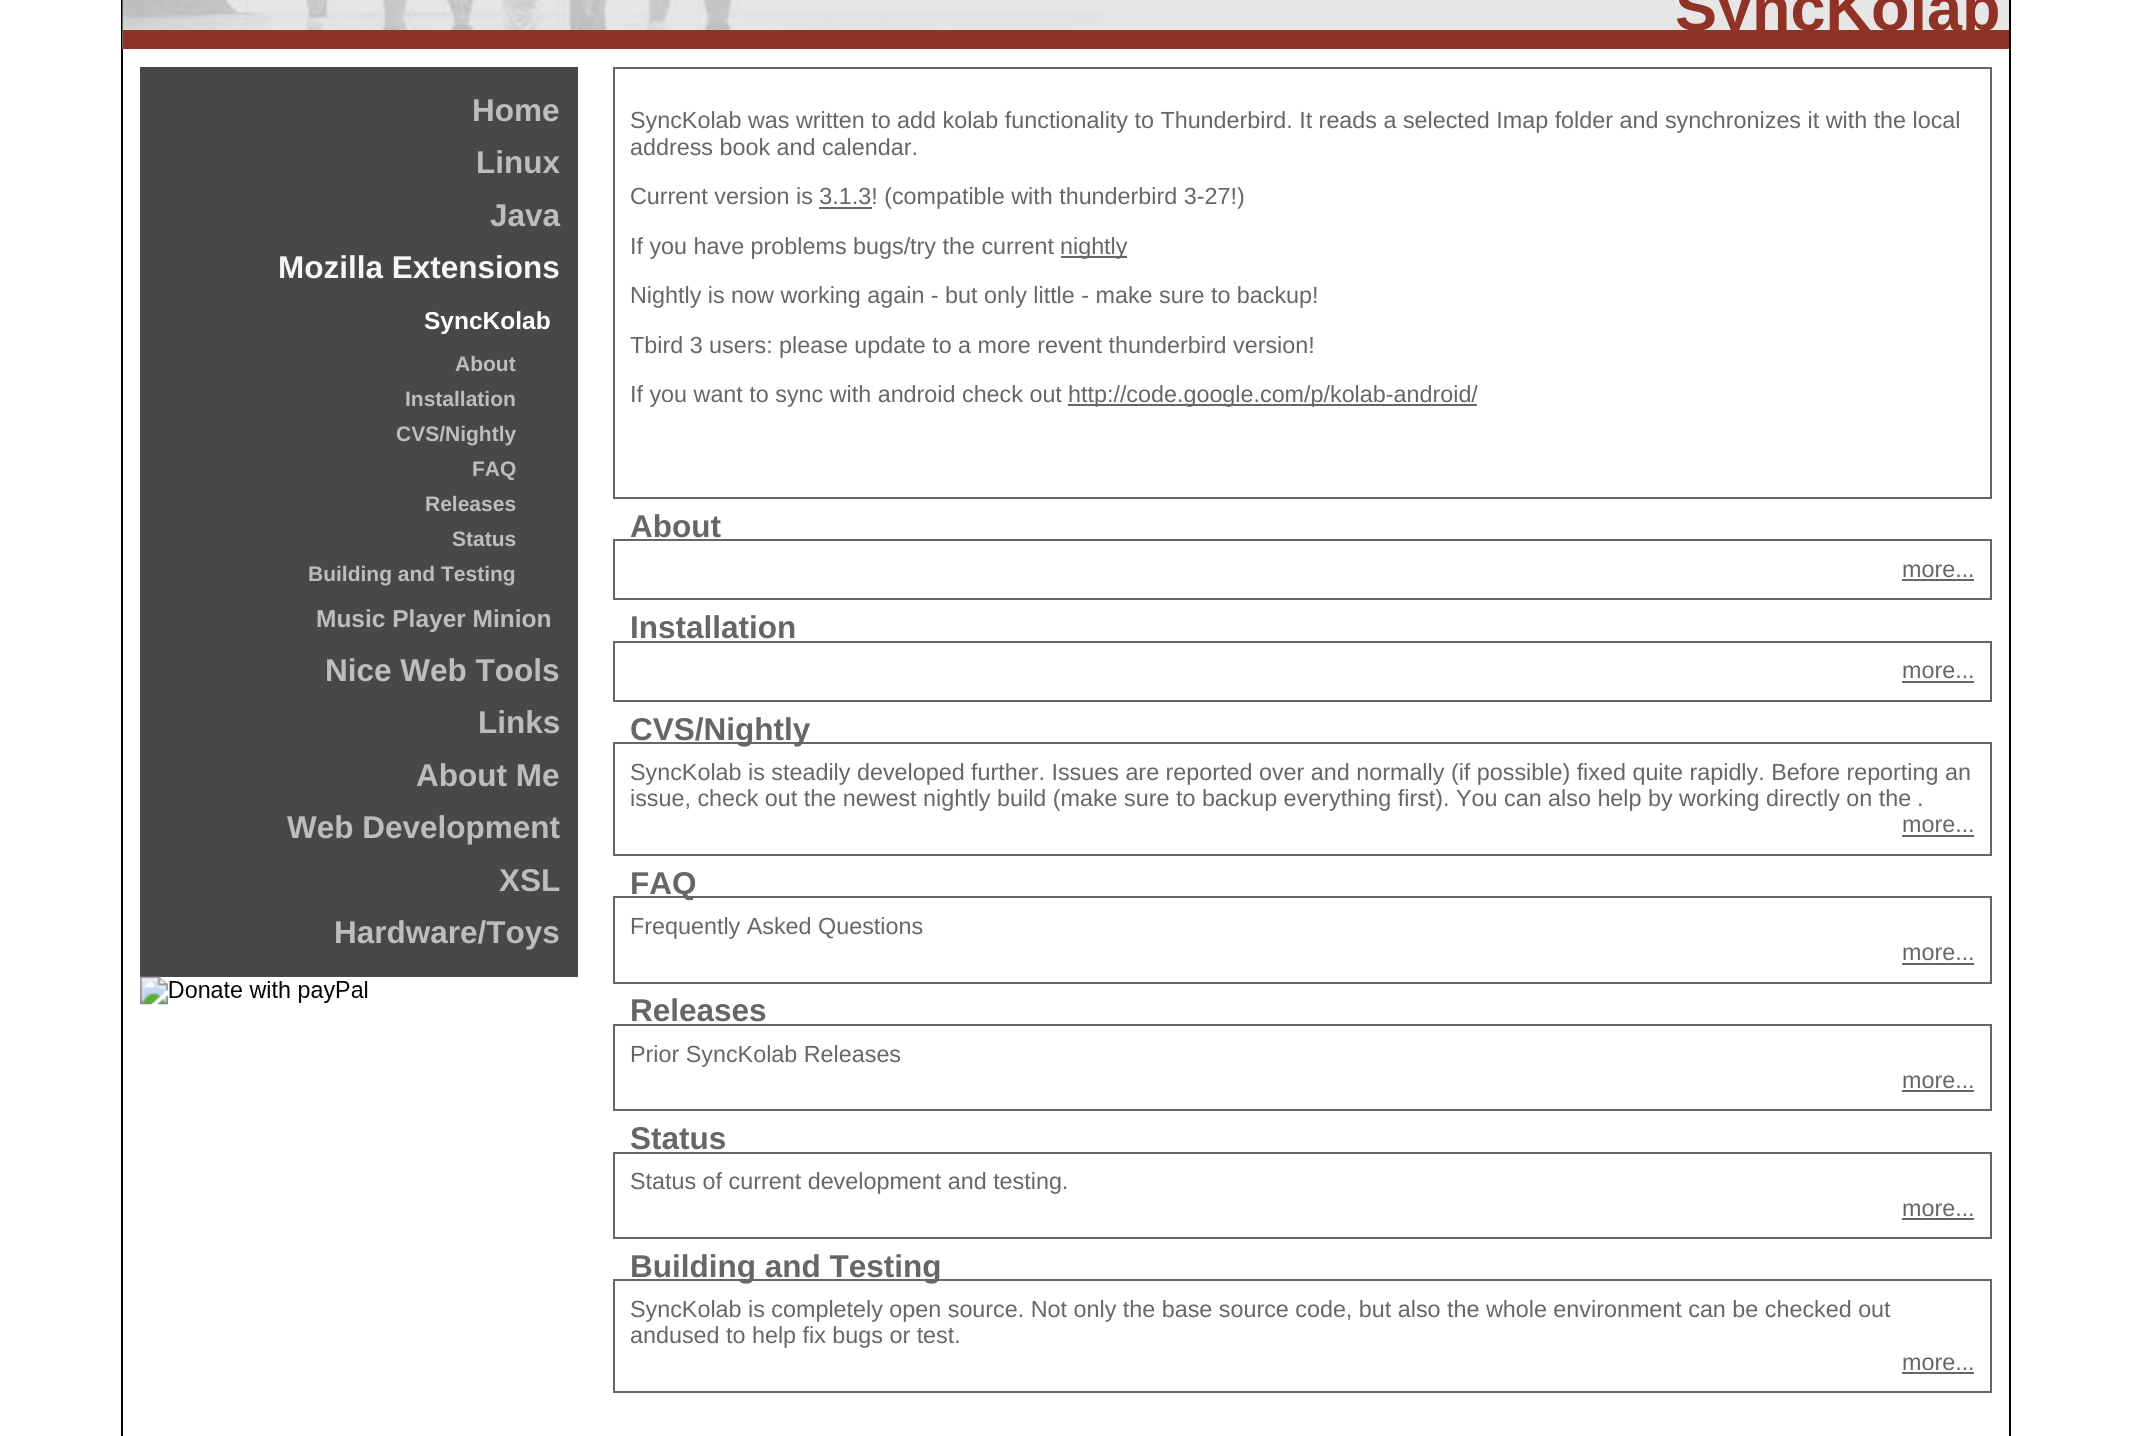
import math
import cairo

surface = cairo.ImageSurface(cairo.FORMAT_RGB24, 2131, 1436)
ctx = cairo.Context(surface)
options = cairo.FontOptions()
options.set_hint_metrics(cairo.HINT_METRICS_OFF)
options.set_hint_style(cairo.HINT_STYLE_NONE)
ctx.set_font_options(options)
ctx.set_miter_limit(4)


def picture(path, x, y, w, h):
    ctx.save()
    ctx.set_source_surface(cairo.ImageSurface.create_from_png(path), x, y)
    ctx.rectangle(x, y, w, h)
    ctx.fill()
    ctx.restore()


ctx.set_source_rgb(1, 1, 1)
ctx.paint()
ctx.rectangle(122, -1, 1888, 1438)
ctx.set_source_rgb(0, 0, 0)
ctx.stroke()
ctx.set_source_rgb(0.902, 0.902, 0.902)
ctx.rectangle(1103, 0, 906, 30)
ctx.fill()
picture("img1.png", 122, 0, 981, 49)
ctx.set_source_rgb(0.565, 0.2, 0.149)
ctx.rectangle(123, 30, 1886, 19)
ctx.fill()
ctx.select_font_face("Liberation Sans", cairo.FONT_SLANT_NORMAL, cairo.FONT_WEIGHT_BOLD)
ctx.set_font_size(63)
ctx.move_to(1675, 30)
ctx.show_text("SyncKolab")
ctx.set_source_rgb(0.282, 0.282, 0.282)
ctx.rectangle(140, 67, 438, 910)
ctx.fill()
ctx.set_font_size(31.5)
ctx.set_source_rgb(0.741, 0.741, 0.741)
ctx.move_to(472, 121)
ctx.show_text("Home")
ctx.move_to(476, 173)
ctx.show_text("Linux")
ctx.move_to(490, 226)
ctx.show_text("Java")
ctx.set_source_rgb(0.965, 0.965, 0.965)
ctx.move_to(278, 278)
ctx.show_text("Mozilla Extensions")
ctx.set_font_size(24.5)
ctx.set_source_rgb(1, 1, 1)
ctx.move_to(424, 329)
ctx.show_text("SyncKolab")
ctx.set_font_size(21)
ctx.set_source_rgb(0.741, 0.741, 0.741)
ctx.move_to(455, 371)
ctx.show_text("About")
ctx.move_to(405, 406)
ctx.show_text("Installation")
ctx.move_to(396, 441)
ctx.show_text("CVS/Nightly")
ctx.move_to(472, 476)
ctx.show_text("FAQ")
ctx.move_to(425, 511)
ctx.show_text("Releases")
ctx.move_to(452, 546)
ctx.show_text("Status")
ctx.move_to(308, 581)
ctx.show_text("Building and Testing")
ctx.set_font_size(24.5)
ctx.move_to(316, 627)
ctx.show_text("Music Player Minion")
ctx.set_font_size(31.5)
ctx.move_to(325, 681)
ctx.show_text("Nice Web Tools")
ctx.move_to(478, 733)
ctx.show_text("Links")
ctx.move_to(416, 786)
ctx.show_text("About Me")
ctx.move_to(287, 838)
ctx.show_text("Web Development")
ctx.move_to(499, 891)
ctx.show_text("XSL")
ctx.move_to(334, 943)
ctx.show_text("Hardware/Toys")
picture("img2.png", 140, 976, 228, 29)
ctx.rectangle(614, 68, 1377, 430)
ctx.set_source_rgb(0.4, 0.4, 0.4)
ctx.stroke()
ctx.select_font_face("Liberation Sans")
ctx.set_font_size(23.33)
ctx.move_to(630, 128)
ctx.show_text("SyncKolab was written to add kolab functionality to Thunderbird. It reads a selected Imap folder and synchronizes it with the local")
ctx.move_to(630, 155)
ctx.show_text("address book and calendar.")
ctx.move_to(630, 204)
ctx.show_text("Current version is 3.1.3! (compatible with thunderbird 3-27!)")
ctx.rectangle(819, 207, 53, 2)
ctx.fill()
ctx.move_to(630, 254)
ctx.show_text("If you have problems bugs/try the current")
ctx.rectangle(1061, 256, 66, 2)
ctx.fill()
ctx.move_to(1060, 254)
ctx.show_text("nightly")
ctx.move_to(630, 303)
ctx.show_text("Nightly is now working again - but only little - make sure to backup!")
ctx.move_to(630, 353)
ctx.show_text("Tbird 3 users: please update to a more revent thunderbird version!")
ctx.move_to(630, 402)
ctx.show_text("If you want to sync with android check out")
ctx.rectangle(1068, 404, 409, 2)
ctx.fill()
ctx.move_to(1068, 402)
ctx.show_text("http://code.google.com/p/kolab-android/")
ctx.select_font_face("Liberation Sans", cairo.FONT_SLANT_NORMAL, cairo.FONT_WEIGHT_BOLD)
ctx.set_font_size(31.5)
ctx.move_to(630, 537)
ctx.show_text("About")
ctx.rectangle(614, 540, 1377, 59)
ctx.stroke()
ctx.select_font_face("Liberation Sans")
ctx.set_font_size(23.33)
ctx.move_to(1902, 577)
ctx.show_text("more...")
ctx.rectangle(1902, 579, 72, 2)
ctx.fill()
ctx.select_font_face("Liberation Sans", cairo.FONT_SLANT_NORMAL, cairo.FONT_WEIGHT_BOLD)
ctx.set_font_size(31.5)
ctx.move_to(630, 638)
ctx.show_text("Installation")
ctx.rectangle(614, 642, 1377, 59)
ctx.stroke()
ctx.select_font_face("Liberation Sans")
ctx.set_font_size(23.33)
ctx.move_to(1902, 678)
ctx.show_text("more...")
ctx.rectangle(1902, 681, 72, 2)
ctx.fill()
ctx.rectangle(614, 743, 1377, 112)
ctx.stroke()
ctx.select_font_face("Liberation Sans", cairo.FONT_SLANT_NORMAL, cairo.FONT_WEIGHT_BOLD)
ctx.set_font_size(31.5)
ctx.move_to(630, 740)
ctx.show_text("CVS/Nightly")
ctx.select_font_face("Liberation Sans")
ctx.set_font_size(23.33)
ctx.move_to(630, 780)
ctx.show_text("SyncKolab is steadily developed further. Issues are reported over and normally (if possible) fixed quite rapidly. Before reporting an")
ctx.move_to(630, 806)
ctx.show_text("issue, check out the newest nightly build (make sure to backup everything first). You can also help by working directly on the")
ctx.move_to(1917, 806)
ctx.show_text(".")
ctx.move_to(1902, 832)
ctx.show_text("more...")
ctx.rectangle(1902, 835, 72, 2)
ctx.fill()
ctx.rectangle(614, 897, 1377, 86)
ctx.stroke()
ctx.select_font_face("Liberation Sans", cairo.FONT_SLANT_NORMAL, cairo.FONT_WEIGHT_BOLD)
ctx.set_font_size(31.5)
ctx.move_to(630, 894)
ctx.show_text("FAQ")
ctx.select_font_face("Liberation Sans")
ctx.set_font_size(23.33)
ctx.move_to(630, 934)
ctx.show_text("Frequently Asked Questions")
ctx.move_to(1902, 960)
ctx.show_text("more...")
ctx.rectangle(1902, 963, 72, 2)
ctx.fill()
ctx.select_font_face("Liberation Sans", cairo.FONT_SLANT_NORMAL, cairo.FONT_WEIGHT_BOLD)
ctx.set_font_size(31.5)
ctx.move_to(630, 1021)
ctx.show_text("Releases")
ctx.rectangle(614, 1025, 1377, 85)
ctx.stroke()
ctx.select_font_face("Liberation Sans")
ctx.set_font_size(23.33)
ctx.move_to(630, 1062)
ctx.show_text("Prior SyncKolab Releases")
ctx.move_to(1902, 1088)
ctx.show_text("more...")
ctx.rectangle(1902, 1090, 72, 2)
ctx.fill()
ctx.select_font_face("Liberation Sans", cairo.FONT_SLANT_NORMAL, cairo.FONT_WEIGHT_BOLD)
ctx.set_font_size(31.5)
ctx.move_to(630, 1149)
ctx.show_text("Status")
ctx.rectangle(614, 1153, 1377, 85)
ctx.stroke()
ctx.select_font_face("Liberation Sans")
ctx.set_font_size(23.33)
ctx.move_to(630, 1189)
ctx.show_text("Status of current development and testing.")
ctx.move_to(1902, 1216)
ctx.show_text("more...")
ctx.rectangle(1902, 1218, 72, 2)
ctx.fill()
ctx.rectangle(614, 1280, 1377, 112)
ctx.stroke()
ctx.select_font_face("Liberation Sans", cairo.FONT_SLANT_NORMAL, cairo.FONT_WEIGHT_BOLD)
ctx.set_font_size(31.5)
ctx.move_to(630, 1277)
ctx.show_text("Building and Testing")
ctx.select_font_face("Liberation Sans")
ctx.set_font_size(23.33)
ctx.move_to(630, 1317)
ctx.show_text("SyncKolab is completely open source. Not only the base source code, but also the whole environment can be checked out")
ctx.move_to(630, 1343)
ctx.show_text("andused to help fix bugs or test.")
ctx.move_to(1902, 1370)
ctx.show_text("more...")
ctx.rectangle(1902, 1372, 72, 2)
ctx.fill()
surface.write_to_png("page.png")
